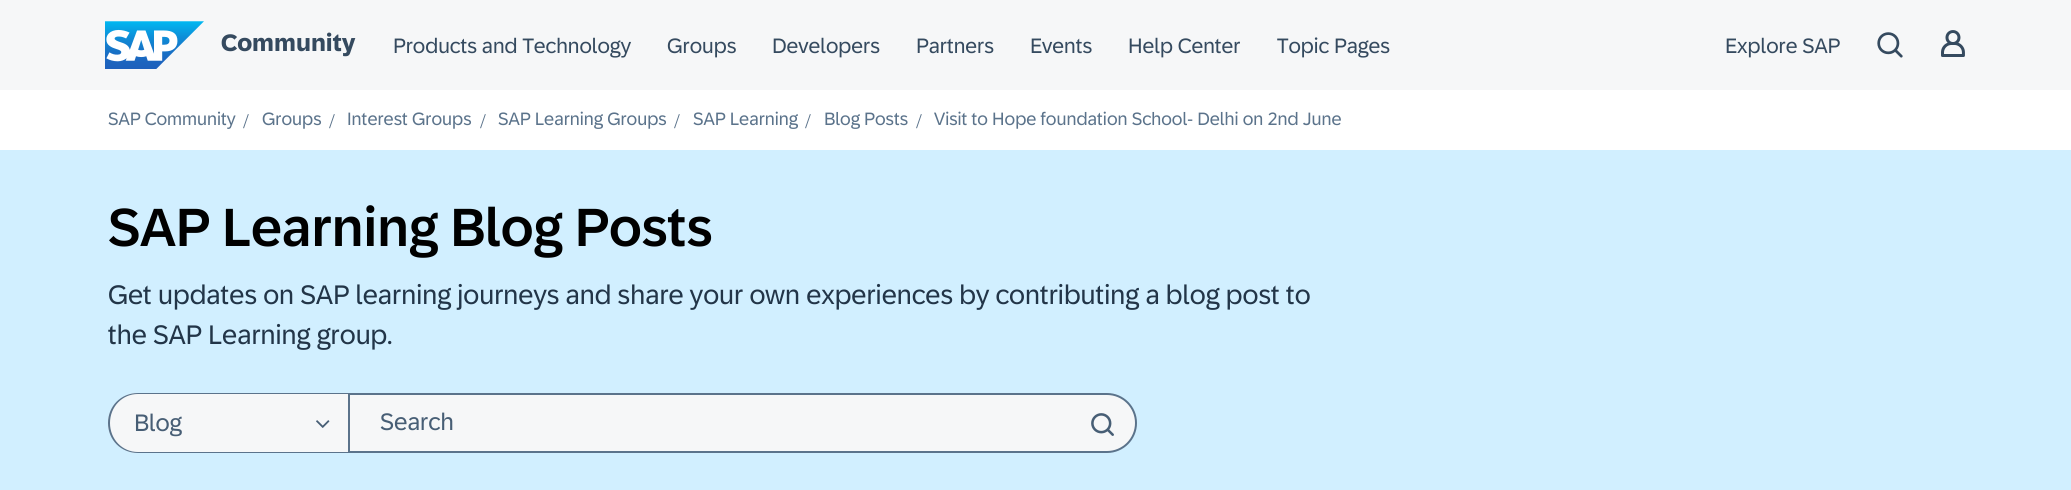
import math
import cairo

surface = cairo.ImageSurface(cairo.FORMAT_RGB24, 2071, 490)
ctx = cairo.Context(surface)
options = cairo.FontOptions()
options.set_hint_metrics(cairo.HINT_METRICS_OFF)
options.set_hint_style(cairo.HINT_STYLE_NONE)
ctx.set_font_options(options)
ctx.set_miter_limit(4)


def picture(path, x, y, w, h):
    ctx.save()
    ctx.set_source_surface(cairo.ImageSurface.create_from_png(path), x, y)
    ctx.rectangle(x, y, w, h)
    ctx.fill()
    ctx.restore()


ctx.set_source_rgb(1, 1, 1)
ctx.paint()
ctx.set_source_rgb(0.961, 0.965, 0.969)
ctx.rectangle(0, 0, 2071, 90)
ctx.fill()
picture("img1.png", 105, 21, 99, 48)
ctx.select_font_face("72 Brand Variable", cairo.FONT_SLANT_NORMAL, cairo.FONT_WEIGHT_BOLD)
ctx.set_font_size(24)
ctx.set_source_rgb(0.208, 0.29, 0.373)
ctx.move_to(221, 51)
ctx.show_text("Community")
ctx.select_font_face("72 Brand Variable")
ctx.set_font_size(21)
ctx.move_to(393, 53)
ctx.show_text("Products and Technology")
ctx.move_to(667, 53)
ctx.show_text("Groups")
ctx.move_to(772, 53)
ctx.show_text("Developers")
ctx.move_to(916, 53)
ctx.show_text("Partners")
ctx.move_to(1030, 53)
ctx.show_text("Events")
ctx.move_to(1128, 53)
ctx.show_text("Help Center")
ctx.move_to(1277, 53)
ctx.show_text("Topic Pages")
ctx.move_to(1725, 53)
ctx.show_text("Explore SAP")
picture("img2.png", 1877, 32, 26, 26)
picture("img3.png", 1941, 30, 24, 27)
ctx.set_font_size(18)
ctx.set_source_rgb(0.357, 0.451, 0.545)
ctx.move_to(108, 125)
ctx.show_text("SAP Community")
ctx.select_font_face("Liberation Serif")
ctx.set_font_size(21)
ctx.move_to(243, 128)
ctx.show_text("/")
ctx.select_font_face("72 Brand Variable")
ctx.set_font_size(18)
ctx.move_to(262, 125)
ctx.show_text("Groups")
ctx.select_font_face("Liberation Serif")
ctx.set_font_size(21)
ctx.move_to(329, 128)
ctx.show_text("/")
ctx.select_font_face("72 Brand Variable")
ctx.set_font_size(18)
ctx.move_to(347, 125)
ctx.show_text("Interest Groups")
ctx.select_font_face("Liberation Serif")
ctx.set_font_size(21)
ctx.move_to(480, 128)
ctx.show_text("/")
ctx.select_font_face("72 Brand Variable")
ctx.set_font_size(18)
ctx.move_to(498, 125)
ctx.show_text("SAP Learning Groups")
ctx.select_font_face("Liberation Serif")
ctx.set_font_size(21)
ctx.move_to(674, 128)
ctx.show_text("/")
ctx.select_font_face("72 Brand Variable")
ctx.set_font_size(18)
ctx.move_to(693, 125)
ctx.show_text("SAP Learning")
ctx.select_font_face("Liberation Serif")
ctx.set_font_size(21)
ctx.move_to(805, 128)
ctx.show_text("/")
ctx.select_font_face("72 Brand Variable")
ctx.set_font_size(18)
ctx.move_to(824, 125)
ctx.show_text("Blog Posts")
ctx.select_font_face("Liberation Serif")
ctx.set_font_size(21)
ctx.move_to(916, 128)
ctx.show_text("/")
ctx.select_font_face("72 Brand Variable")
ctx.set_font_size(18)
ctx.move_to(934, 125)
ctx.show_text("Visit to Hope foundation School- Delhi on 2nd June")
ctx.set_source_rgb(0.82, 0.937, 1)
ctx.rectangle(0, 150, 2071, 340)
ctx.fill()
ctx.select_font_face("72 Brand Variable Medium")
ctx.set_font_size(54)
ctx.set_source_rgb(0, 0, 0)
ctx.move_to(108, 246)
ctx.show_text("SAP Learning Blog Posts")
ctx.select_font_face("72 Brand Variable")
ctx.set_font_size(27)
ctx.set_source_rgb(0.133, 0.208, 0.282)
ctx.move_to(108, 304)
ctx.show_text("Get updates on SAP learning journeys and share your own experiences by contributing a blog post to")
ctx.move_to(108, 344)
ctx.show_text("the SAP Learning group.")
ctx.set_source_rgb(0.961, 0.965, 0.969)
ctx.new_path()
ctx.move_to(138, 393)
ctx.line_to(348, 393)
ctx.line_to(348, 453)
ctx.line_to(138, 453)
ctx.curve_to(121.5, 453, 108, 439.5, 108, 423)
ctx.curve_to(108, 406.5, 121.5, 393, 138, 393)
ctx.close_path()
ctx.fill()
ctx.set_source_rgb(0.357, 0.451, 0.545)
ctx.set_fill_rule(cairo.FILL_RULE_EVEN_ODD)
ctx.new_path()
ctx.move_to(138, 393)
ctx.line_to(348, 393)
ctx.line_to(348, 453)
ctx.line_to(138, 453)
ctx.curve_to(121, 453, 108, 440, 108, 423)
ctx.curve_to(108, 406, 121, 393, 138, 393)
ctx.close_path()
ctx.move_to(138, 394)
ctx.line_to(348, 394)
ctx.line_to(348, 452)
ctx.line_to(138, 452)
ctx.curve_to(122, 452, 110, 439, 110, 423)
ctx.curve_to(110, 407, 122, 394, 138, 394)
ctx.close_path()
ctx.fill()
ctx.set_font_size(24)
ctx.set_source_rgb(0.278, 0.369, 0.459)
ctx.move_to(134, 431)
ctx.show_text("Blog")
picture("img4.png", 316, 420, 14, 8)
ctx.set_source_rgb(0.961, 0.965, 0.969)
ctx.new_path()
ctx.move_to(349, 394)
ctx.line_to(1107, 394)
ctx.curve_to(1123, 394, 1136, 407, 1136, 423)
ctx.curve_to(1136, 439, 1123, 452, 1107, 452)
ctx.line_to(349, 452)
ctx.close_path()
ctx.fill_preserve()
ctx.set_source_rgb(0.357, 0.451, 0.545)
ctx.stroke()
ctx.set_source_rgb(0.278, 0.369, 0.459)
ctx.move_to(380, 430)
ctx.show_text("Search")
picture("img5.png", 1091, 413, 23, 23)
surface.write_to_png("page.png")
